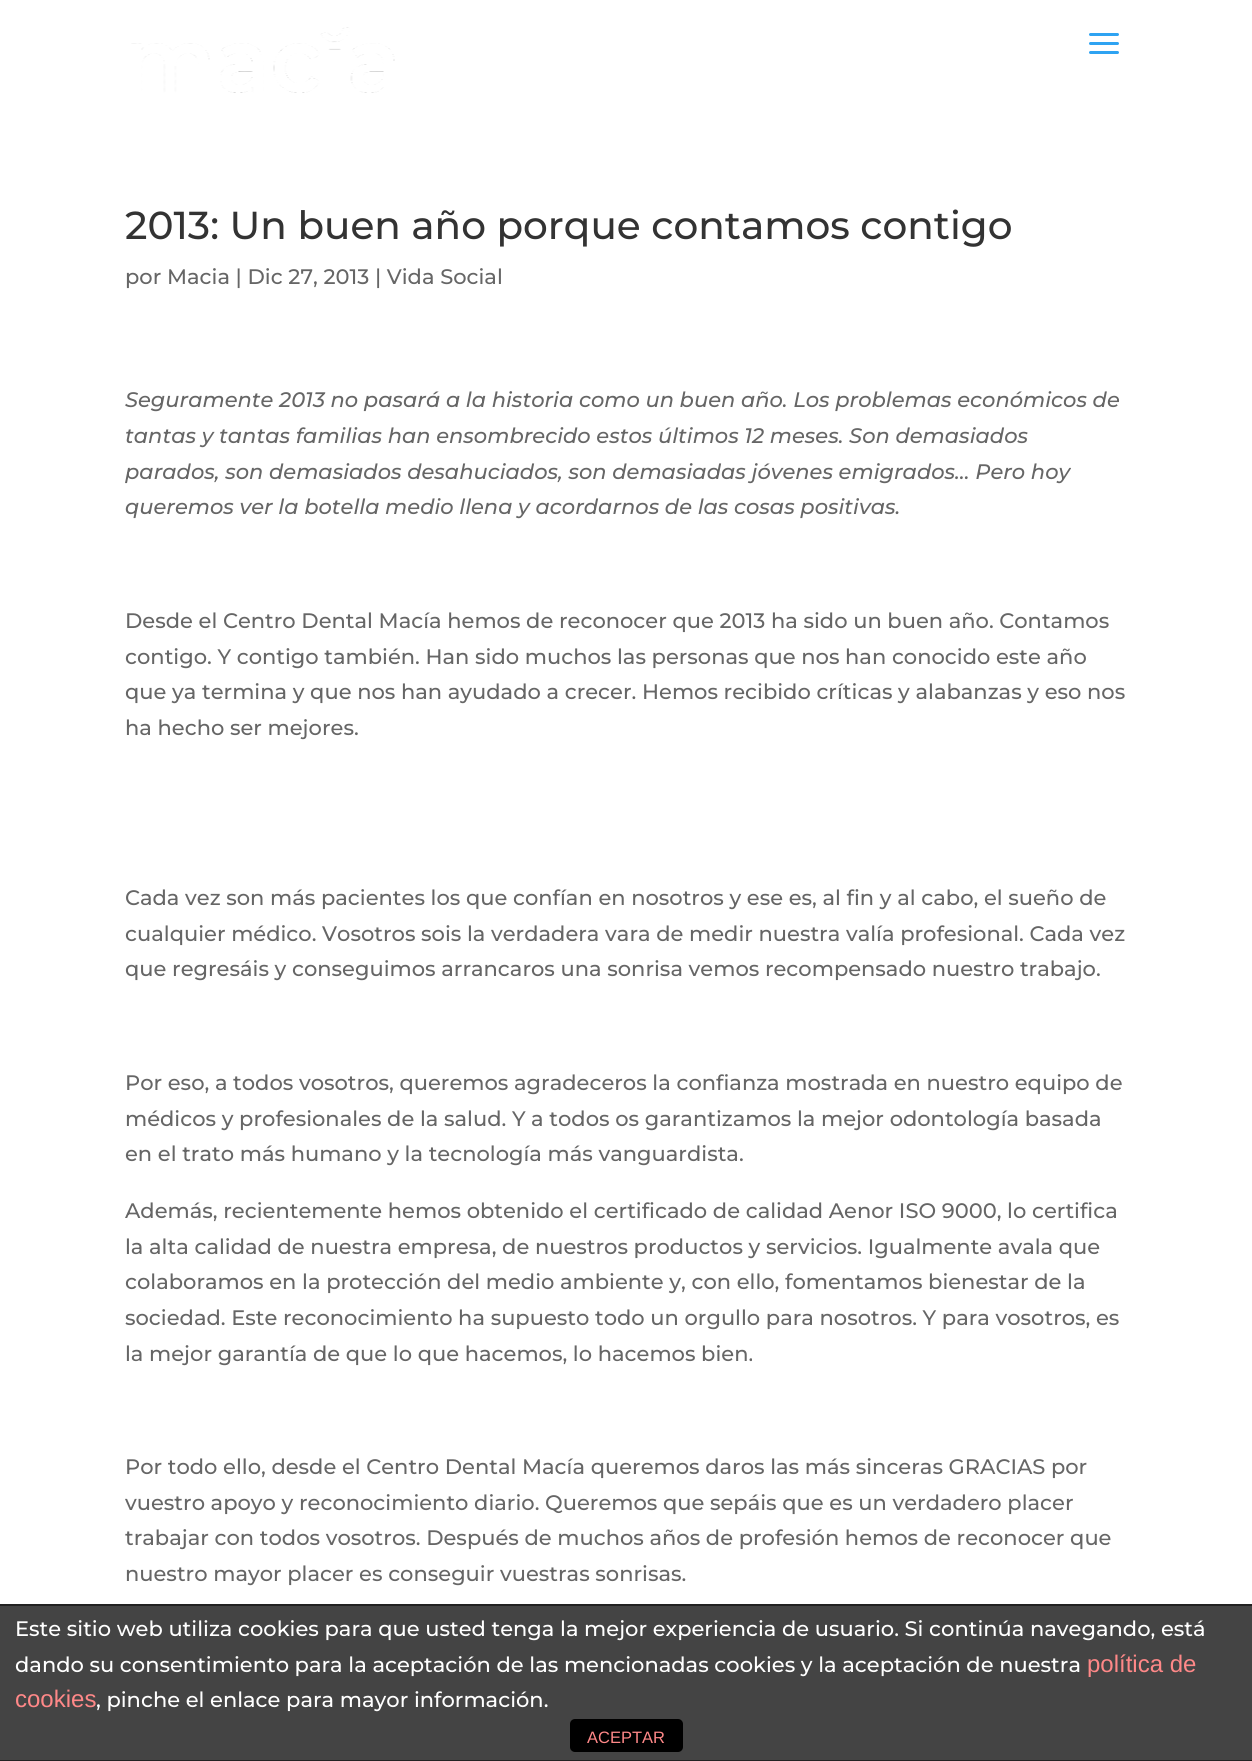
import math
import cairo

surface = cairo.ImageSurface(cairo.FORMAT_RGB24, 1252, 1761)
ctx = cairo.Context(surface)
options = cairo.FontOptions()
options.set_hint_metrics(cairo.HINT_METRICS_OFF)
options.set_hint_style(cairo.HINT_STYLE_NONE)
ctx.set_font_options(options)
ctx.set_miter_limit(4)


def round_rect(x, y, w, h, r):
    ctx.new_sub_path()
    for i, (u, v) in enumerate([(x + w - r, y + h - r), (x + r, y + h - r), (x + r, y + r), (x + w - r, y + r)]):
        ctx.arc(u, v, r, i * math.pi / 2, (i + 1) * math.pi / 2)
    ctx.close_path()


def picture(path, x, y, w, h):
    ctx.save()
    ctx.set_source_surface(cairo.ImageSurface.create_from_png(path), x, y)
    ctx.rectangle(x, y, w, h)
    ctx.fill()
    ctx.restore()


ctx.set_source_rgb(1, 1, 1)
ctx.paint()
picture("img1.png", 131, 27, 264, 66)
picture("img2.png", 1089, 33, 30, 21)
ctx.select_font_face("Montserrat Thin")
ctx.set_font_size(39)
ctx.set_source_rgb(0.2, 0.2, 0.2)
ctx.move_to(125, 239)
ctx.show_text("2013: Un buen año porque contamos contigo")
ctx.set_font_size(21)
ctx.set_source_rgb(0.4, 0.4, 0.4)
ctx.move_to(125, 284)
ctx.show_text("por Macia | Dic 27, 2013 | Vida Social")
ctx.select_font_face("Montserrat Thin", cairo.FONT_SLANT_ITALIC)
ctx.move_to(125, 407)
ctx.show_text("Seguramente 2013 no pasará a la historia como un buen año. Los problemas económicos de")
ctx.move_to(125, 443)
ctx.show_text("tantas y tantas familias han ensombrecido estos últimos 12 meses. Son demasiados")
ctx.move_to(125, 479)
ctx.show_text("parados, son demasiados desahuciados, son demasiadas jóvenes emigrados… Pero hoy")
ctx.move_to(125, 514)
ctx.show_text("queremos ver la botella medio llena y acordarnos de las cosas positivas.")
ctx.select_font_face("Montserrat Thin")
ctx.move_to(125, 628)
ctx.show_text("Desde el Centro Dental Macía hemos de reconocer que 2013 ha sido un buen año. Contamos")
ctx.move_to(125, 664)
ctx.show_text("contigo. Y contigo también. Han sido muchos las personas que nos han conocido este año")
ctx.move_to(125, 699)
ctx.show_text("que ya termina y que nos han ayudado a crecer. Hemos recibido críticas y alabanzas y eso nos")
ctx.move_to(125, 735)
ctx.show_text("ha hecho ser mejores.")
ctx.move_to(125, 905)
ctx.show_text("Cada vez son más pacientes los que confían en nosotros y ese es, al fin y al cabo, el sueño de")
ctx.move_to(125, 941)
ctx.show_text("cualquier médico. Vosotros sois la verdadera vara de medir nuestra valía profesional. Cada vez")
ctx.move_to(125, 976)
ctx.show_text("que regresáis y conseguimos arrancaros una sonrisa vemos recompensado nuestro trabajo.")
ctx.move_to(125, 1090)
ctx.show_text("Por eso, a todos vosotros, queremos agradeceros la confianza mostrada en nuestro equipo de")
ctx.move_to(125, 1126)
ctx.show_text("médicos y profesionales de la salud. Y a todos os garantizamos la mejor odontología basada")
ctx.move_to(125, 1161)
ctx.show_text("en el trato más humano y la tecnología más vanguardista.")
ctx.move_to(125, 1218)
ctx.show_text("Además, recientemente hemos obtenido el certificado de calidad Aenor ISO 9000, lo certifica")
ctx.move_to(125, 1254)
ctx.show_text("la alta calidad de nuestra empresa, de nuestros productos y servicios. Igualmente avala que")
ctx.move_to(125, 1289)
ctx.show_text("colaboramos en la protección del medio ambiente y, con ello, fomentamos bienestar de la")
ctx.move_to(125, 1325)
ctx.show_text("sociedad. Este reconocimiento ha supuesto todo un orgullo para nosotros. Y para vosotros, es")
ctx.move_to(125, 1361)
ctx.show_text("la mejor garantía de que lo que hacemos, lo hacemos bien.")
ctx.move_to(125, 1474)
ctx.show_text("Por todo ello, desde el Centro Dental Macía queremos daros las más sinceras GRACIAS por")
ctx.move_to(125, 1510)
ctx.show_text("vuestro apoyo y reconocimiento diario. Queremos que sepáis que es un verdadero placer")
ctx.move_to(125, 1545)
ctx.show_text("trabajar con todos vosotros. Después de muchos años de profesión hemos de reconocer que")
ctx.move_to(125, 1581)
ctx.show_text("nuestro mayor placer es conseguir vuestras sonrisas.")
ctx.set_source_rgb(0.267, 0.267, 0.267)
ctx.rectangle(0, 1606, 1252, 154)
ctx.fill()
ctx.set_source_rgb(0.133, 0.133, 0.133)
ctx.rectangle(0, 1604, 1252, 2)
ctx.fill()
ctx.rectangle(0, 1760, 1252, 1)
ctx.fill()
ctx.set_source_rgb(1, 1, 1)
ctx.move_to(15, 1636)
ctx.show_text("Este sitio web utiliza cookies para que usted tenga la mejor experiencia de usuario. Si continúa navegando, está")
ctx.move_to(15, 1672)
ctx.show_text("dando su consentimiento para la aceptación de las mencionadas cookies y la aceptación de nuestra")
ctx.select_font_face("Liberation Sans")
ctx.set_font_size(24)
ctx.set_source_rgb(1, 0.533, 0.533)
ctx.move_to(1087, 1672)
ctx.show_text("política de")
ctx.move_to(15, 1707)
ctx.show_text("cookies")
ctx.select_font_face("Montserrat Thin")
ctx.set_font_size(21)
ctx.set_source_rgb(1, 1, 1)
ctx.move_to(96, 1707)
ctx.show_text(", pinche el enlace para mayor información.")
ctx.set_source_rgb(0, 0, 0)
round_rect(570, 1719, 113, 33, 5)
ctx.fill()
ctx.select_font_face("Liberation Sans")
ctx.set_font_size(16.5)
ctx.set_source_rgb(1, 0.533, 0.533)
ctx.move_to(587, 1743)
ctx.show_text("ACEPTAR")
surface.write_to_png("page.png")
